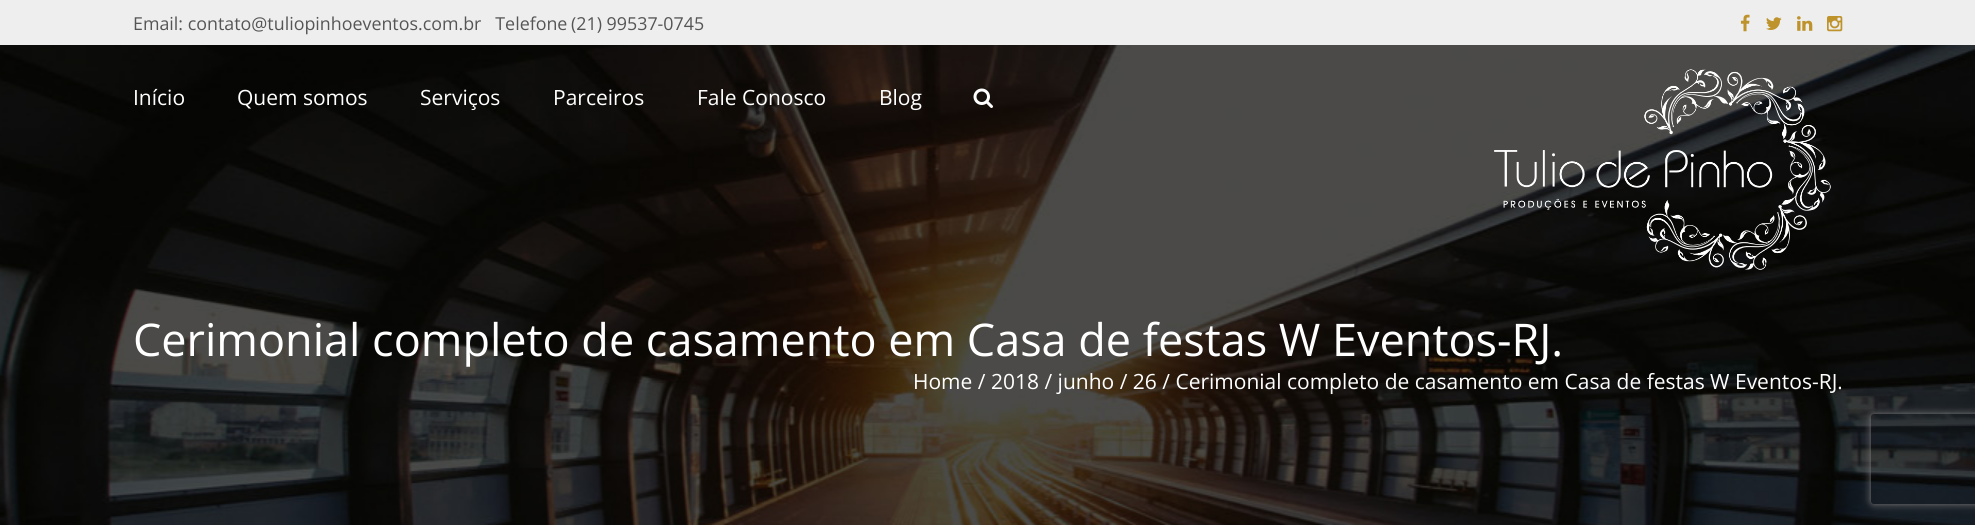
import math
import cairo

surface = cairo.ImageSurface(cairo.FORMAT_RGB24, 1975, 525)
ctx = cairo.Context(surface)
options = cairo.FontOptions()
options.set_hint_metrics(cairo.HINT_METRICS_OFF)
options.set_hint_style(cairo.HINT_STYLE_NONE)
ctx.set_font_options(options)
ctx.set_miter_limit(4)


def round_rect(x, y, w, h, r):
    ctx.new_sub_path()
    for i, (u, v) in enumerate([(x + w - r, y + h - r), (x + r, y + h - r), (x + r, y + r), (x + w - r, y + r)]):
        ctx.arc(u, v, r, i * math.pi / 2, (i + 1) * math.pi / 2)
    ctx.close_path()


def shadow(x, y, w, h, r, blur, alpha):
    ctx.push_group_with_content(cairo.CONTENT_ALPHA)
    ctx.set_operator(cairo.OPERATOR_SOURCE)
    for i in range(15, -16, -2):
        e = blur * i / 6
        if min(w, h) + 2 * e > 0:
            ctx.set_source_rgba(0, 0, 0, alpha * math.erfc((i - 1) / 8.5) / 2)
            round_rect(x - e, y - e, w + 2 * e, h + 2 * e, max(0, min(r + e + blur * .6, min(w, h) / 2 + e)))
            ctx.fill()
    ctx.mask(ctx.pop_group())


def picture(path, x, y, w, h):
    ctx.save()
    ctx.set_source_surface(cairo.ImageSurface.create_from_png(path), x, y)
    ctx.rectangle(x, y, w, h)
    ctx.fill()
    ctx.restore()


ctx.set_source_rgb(1, 1, 1)
ctx.paint()
ctx.set_source_rgb(0.933, 0.933, 0.933)
ctx.rectangle(0, 0, 1975, 45)
ctx.fill()
ctx.select_font_face("Open Sans")
ctx.set_font_size(17.85)
ctx.set_source_rgb(0.333, 0.333, 0.333)
ctx.move_to(133, 30)
ctx.show_text("Email: contato@tuliopinhoeventos.com.br   Telefone")
ctx.move_to(571, 30)
ctx.show_text("(21) 99537-0745")
picture("img1.png", 1740, 14, 10, 18)
picture("img2.png", 1766, 17, 16, 13)
picture("img3.png", 1797, 16, 16, 15)
picture("img4.png", 1827, 16, 16, 16)
picture("img7.png", 0, 45, 1975, 480)
ctx.set_font_size(21)
ctx.set_source_rgb(1, 1, 1)
ctx.move_to(133, 105)
ctx.show_text("Início")
ctx.move_to(237, 105)
ctx.show_text("Quem somos")
ctx.move_to(420, 105)
ctx.show_text("Serviços")
ctx.move_to(553, 105)
ctx.show_text("Parceiros")
ctx.move_to(697, 105)
ctx.show_text("Fale Conosco")
ctx.move_to(879, 105)
ctx.show_text("Blog")
picture("img5.png", 973, 88, 20, 20)
picture("img6.png", 1494, 69, 337, 201)
ctx.set_font_size(45)
ctx.move_to(133, 356)
ctx.show_text("Cerimonial completo de casamento em Casa de festas W Eventos-RJ.")
ctx.set_font_size(21)
ctx.move_to(913, 389)
ctx.show_text("Home / 2018 / junho / 26 / Cerimonial completo de casamento em Casa de festas W Eventos-RJ.")
ctx.save()
ctx.set_fill_rule(cairo.FILL_RULE_EVEN_ODD)
ctx.new_path()
ctx.move_to(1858, 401)
ctx.line_to(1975, 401)
ctx.line_to(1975, 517)
ctx.line_to(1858, 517)
ctx.close_path()
ctx.move_to(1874, 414)
ctx.line_to(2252, 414)
ctx.curve_to(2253.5, 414, 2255, 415.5, 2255, 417)
ctx.line_to(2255, 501)
ctx.curve_to(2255, 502.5, 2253.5, 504, 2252, 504)
ctx.line_to(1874, 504)
ctx.curve_to(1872.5, 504, 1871, 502.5, 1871, 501)
ctx.line_to(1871, 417)
ctx.curve_to(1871, 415.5, 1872.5, 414, 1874, 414)
ctx.close_path()
ctx.clip()
ctx.set_source_rgb(0.502, 0.502, 0.502)
shadow(1871, 414, 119, 90, 3, 4, 1)
ctx.restore()
surface.write_to_png("page.png")
